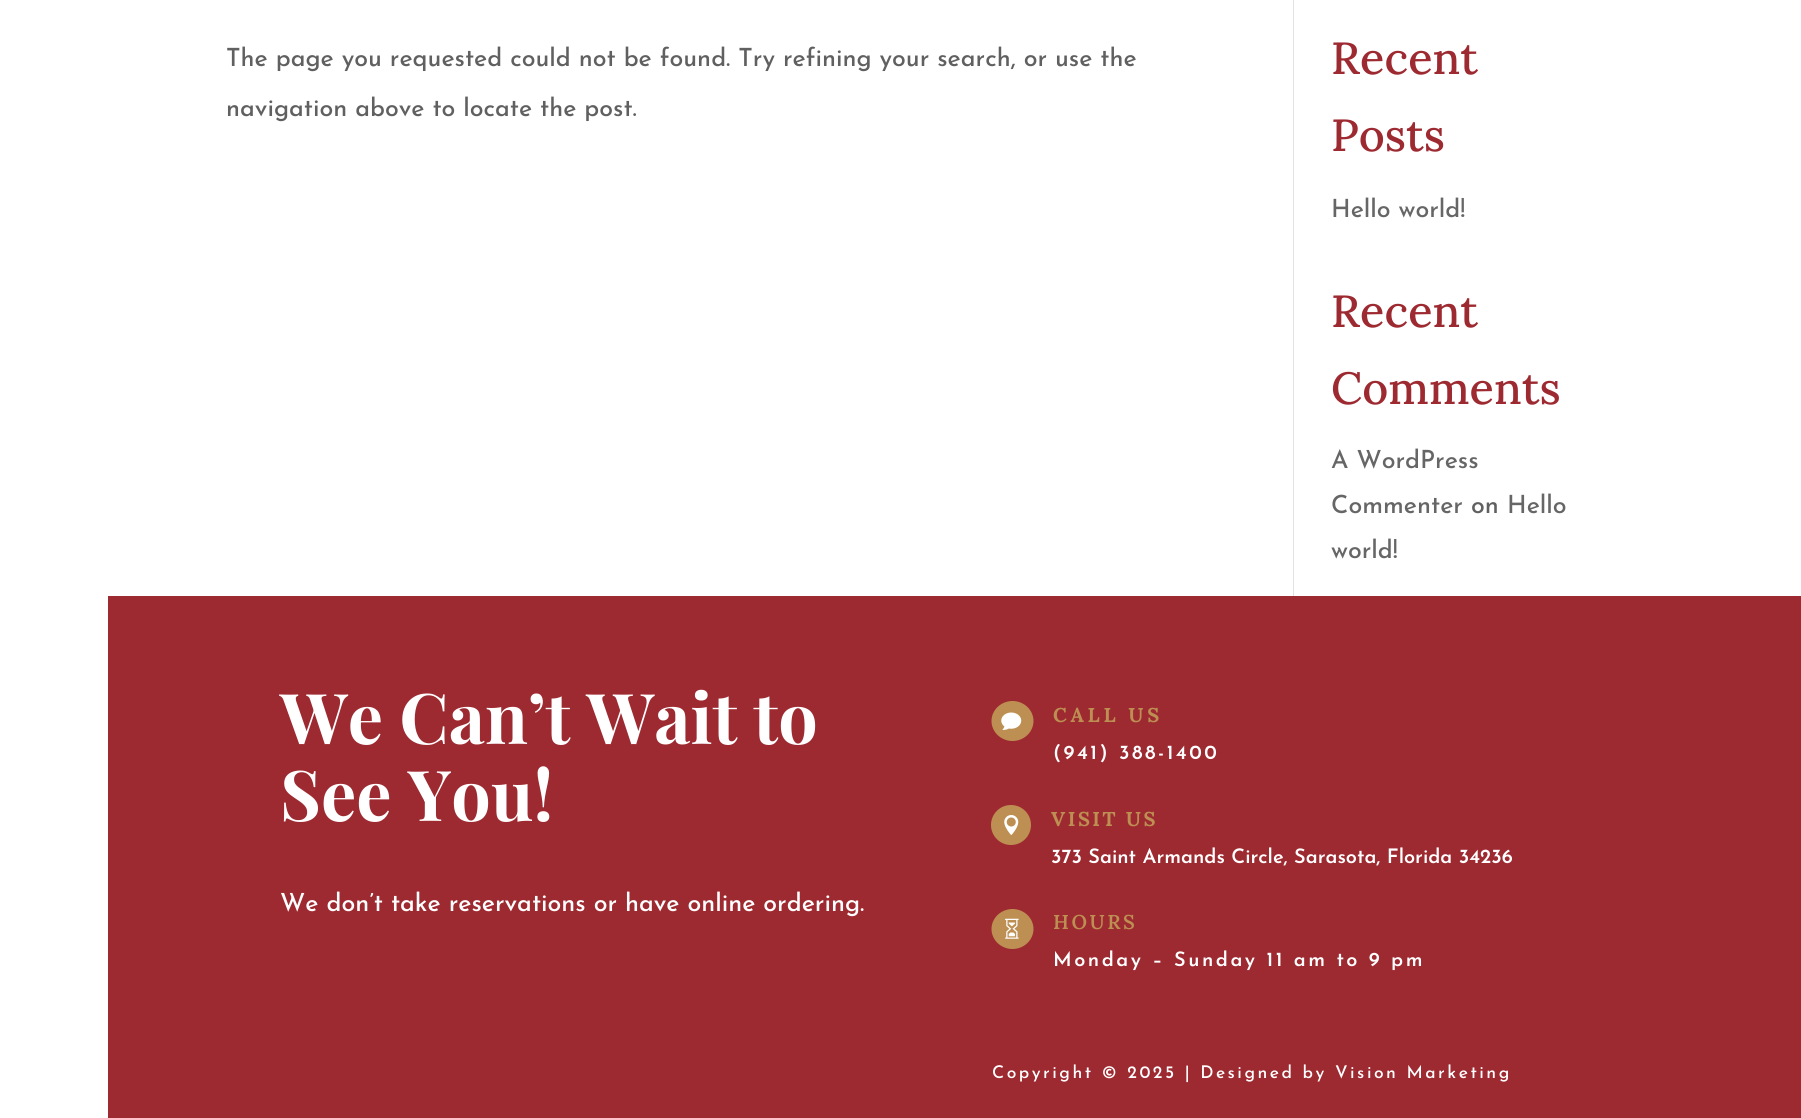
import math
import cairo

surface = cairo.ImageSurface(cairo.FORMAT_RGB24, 1801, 1118)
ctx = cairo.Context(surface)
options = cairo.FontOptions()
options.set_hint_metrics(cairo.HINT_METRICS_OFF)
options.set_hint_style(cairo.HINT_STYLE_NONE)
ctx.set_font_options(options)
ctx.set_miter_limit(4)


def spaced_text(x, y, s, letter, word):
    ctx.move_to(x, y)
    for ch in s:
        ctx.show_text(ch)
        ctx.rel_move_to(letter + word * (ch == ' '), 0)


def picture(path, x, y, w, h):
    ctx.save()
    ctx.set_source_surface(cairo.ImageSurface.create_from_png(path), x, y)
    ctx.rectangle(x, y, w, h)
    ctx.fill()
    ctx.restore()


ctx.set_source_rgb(1, 1, 1)
ctx.paint()
ctx.set_source_rgb(0.886, 0.886, 0.886)
ctx.rectangle(1293, 0, 1, 596)
ctx.fill()
ctx.select_font_face("Josefin Sans Thin")
ctx.set_font_size(25)
ctx.set_source_rgb(0.376, 0.376, 0.376)
ctx.move_to(226, 66)
ctx.show_text("The page you requested could not be found. Try refining your search, or use the")
ctx.move_to(226, 116)
ctx.show_text("navigation above to locate the post.")
ctx.select_font_face("Lora Medium")
ctx.set_font_size(45)
ctx.set_source_rgb(0.62, 0.165, 0.192)
ctx.move_to(1331, 74)
ctx.show_text("Recent")
ctx.move_to(1331, 151)
ctx.show_text("Posts")
ctx.select_font_face("Josefin Sans Thin")
ctx.set_font_size(25)
ctx.set_source_rgb(0.4, 0.4, 0.4)
ctx.move_to(1331, 217)
ctx.show_text("Hello world!")
ctx.select_font_face("Lora Medium")
ctx.set_font_size(45)
ctx.set_source_rgb(0.62, 0.165, 0.192)
ctx.move_to(1331, 327)
ctx.show_text("Recent")
ctx.move_to(1331, 404)
ctx.show_text("Comments")
ctx.select_font_face("Josefin Sans Thin")
ctx.set_font_size(25)
ctx.set_source_rgb(0.4, 0.4, 0.4)
ctx.move_to(1331, 468)
ctx.show_text("A WordPress")
ctx.move_to(1331, 513)
ctx.show_text("Commenter")
ctx.set_source_rgb(0.376, 0.376, 0.376)
ctx.move_to(1471, 513)
ctx.show_text("on")
ctx.set_source_rgb(0.4, 0.4, 0.4)
ctx.move_to(1507, 513)
ctx.show_text("Hello")
ctx.move_to(1331, 558)
ctx.show_text("world!")
ctx.set_source_rgb(0.62, 0.165, 0.192)
ctx.rectangle(108, 596, 1693, 522)
ctx.fill()
ctx.select_font_face("Playfair Display", cairo.FONT_SLANT_NORMAL, cairo.FONT_WEIGHT_BOLD)
ctx.set_font_size(70)
ctx.set_source_rgb(1, 1, 1)
ctx.move_to(280, 744)
ctx.show_text("We Can’t Wait to")
ctx.move_to(280, 821)
ctx.show_text("See You!")
ctx.select_font_face("Josefin Sans Thin")
ctx.set_font_size(25)
ctx.move_to(280, 911)
ctx.show_text("We don’t take reservations or have online ordering.")
ctx.set_source_rgb(0.741, 0.561, 0.322)
ctx.new_path()
ctx.move_to(1012.5, 701)
ctx.curve_to(1024, 701, 1033.5, 710, 1033.5, 721)
ctx.curve_to(1033.5, 732, 1024, 741, 1012.5, 741)
ctx.curve_to(1001, 741, 991.5, 732, 991.5, 721)
ctx.curve_to(991.5, 710, 1001, 701, 1012.5, 701)
ctx.close_path()
ctx.fill()
picture("img1.png", 1001, 712, 21, 18)
ctx.select_font_face("Lora", cairo.FONT_SLANT_NORMAL, cairo.FONT_WEIGHT_BOLD)
ctx.set_font_size(20)
spaced_text(1053, 722, "CALL US", 3.75, 0)
ctx.select_font_face("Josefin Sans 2 Thin")
ctx.set_source_rgb(1, 1, 1)
spaced_text(1053, 759, "(941) 388-1400", 2.5, 0)
ctx.set_source_rgb(0.741, 0.561, 0.322)
ctx.new_path()
ctx.arc(1011, 825, 20, 0, 2 * math.pi)
ctx.fill()
picture("img2.png", 1004, 815, 15, 20)
ctx.select_font_face("Lora", cairo.FONT_SLANT_NORMAL, cairo.FONT_WEIGHT_BOLD)
spaced_text(1051, 826, "VISIT US", 2.5, 0)
ctx.select_font_face("Josefin Sans 2 Thin")
ctx.set_source_rgb(1, 1, 1)
ctx.move_to(1051, 863)
ctx.show_text("373 Saint Armands Circle, Sarasota, Florida 34236")
ctx.set_source_rgb(0.741, 0.561, 0.322)
ctx.new_path()
ctx.move_to(1012.5, 909)
ctx.curve_to(1024, 909, 1033.5, 918, 1033.5, 929)
ctx.curve_to(1033.5, 940, 1024, 949, 1012.5, 949)
ctx.curve_to(1001, 949, 991.5, 940, 991.5, 929)
ctx.curve_to(991.5, 918, 1001, 909, 1012.5, 909)
ctx.close_path()
ctx.fill()
picture("img3.png", 1005, 918, 14, 21)
ctx.select_font_face("Lora SemiBold")
spaced_text(1053, 929, "HOURS", 2.5, 0)
ctx.select_font_face("Josefin Sans 2 Thin")
ctx.set_source_rgb(1, 1, 1)
spaced_text(1053, 966, "Monday – Sunday 11 am to 9 pm", 2.5, 0)
ctx.select_font_face("Josefin Sans Thin")
ctx.set_font_size(17.5)
spaced_text(992, 1078, "Copyright © 2025 | Designed by Vision Marketing", 2.5, 0)
surface.write_to_png("page.png")
